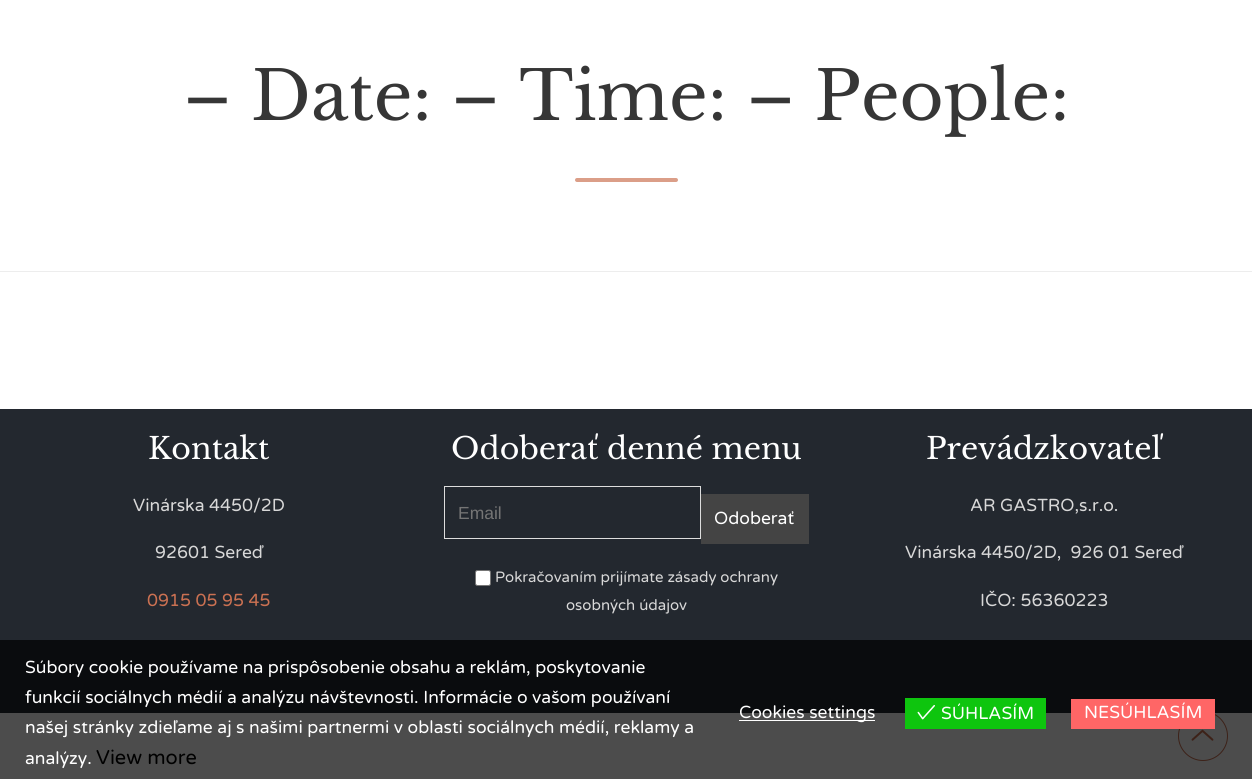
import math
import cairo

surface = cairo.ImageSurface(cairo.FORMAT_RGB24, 1252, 779)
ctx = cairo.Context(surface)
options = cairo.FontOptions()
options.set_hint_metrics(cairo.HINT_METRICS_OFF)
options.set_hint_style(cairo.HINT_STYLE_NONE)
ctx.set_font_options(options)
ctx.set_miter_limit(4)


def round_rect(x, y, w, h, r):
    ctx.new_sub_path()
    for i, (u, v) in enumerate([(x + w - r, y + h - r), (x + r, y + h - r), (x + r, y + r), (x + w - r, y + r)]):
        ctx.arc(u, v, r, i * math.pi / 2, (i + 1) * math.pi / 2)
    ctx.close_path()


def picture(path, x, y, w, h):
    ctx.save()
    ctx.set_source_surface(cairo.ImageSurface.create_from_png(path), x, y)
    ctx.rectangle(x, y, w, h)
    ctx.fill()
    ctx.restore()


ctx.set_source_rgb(1, 1, 1)
ctx.paint()
ctx.set_source_rgb(0.929, 0.929, 0.929)
ctx.rectangle(0, 271, 1252, 1)
ctx.fill()
ctx.select_font_face("Libre Baskerville")
ctx.set_font_size(67.5)
ctx.set_source_rgb(0.212, 0.212, 0.212)
ctx.move_to(183, 120)
ctx.show_text("– Date: – Time: – People:")
ctx.set_source_rgb(0.859, 0.62, 0.533)
round_rect(575, 178, 103, 4, 2)
ctx.fill()
ctx.set_source_rgb(0.137, 0.157, 0.184)
ctx.rectangle(0, 409, 1252, 304)
ctx.fill()
ctx.set_font_size(30)
ctx.set_source_rgb(1, 1, 1)
ctx.move_to(148, 459)
ctx.show_text("Kontakt")
ctx.select_font_face("Varela Round")
ctx.set_font_size(17.5)
ctx.set_source_rgb(0.847, 0.847, 0.847)
ctx.move_to(133, 511)
ctx.show_text("Vinárska 4450/2D")
ctx.move_to(155, 558)
ctx.show_text("92601 Sereď")
ctx.set_source_rgb(0.796, 0.443, 0.322)
ctx.move_to(147, 606)
ctx.show_text("0915 05 95 45")
ctx.select_font_face("Libre Baskerville")
ctx.set_font_size(30)
ctx.set_source_rgb(1, 1, 1)
ctx.move_to(451, 459)
ctx.show_text("Odoberať denné menu")
ctx.rectangle(444.5, 486.5, 256, 52)
ctx.set_source_rgb(0.867, 0.867, 0.867)
ctx.set_line_width(1)
ctx.stroke()
ctx.select_font_face("Liberation Sans")
ctx.set_font_size(17.5)
ctx.set_source_rgb(0.459, 0.459, 0.459)
ctx.move_to(458, 519)
ctx.show_text("Email")
ctx.set_source_rgb(0.267, 0.267, 0.267)
ctx.rectangle(701, 494, 108, 50)
ctx.fill()
ctx.select_font_face("Varela Round")
ctx.set_source_rgb(1, 1, 1)
ctx.move_to(714, 524)
ctx.show_text("Odoberať")
round_rect(475.5, 570.5, 15, 15, 2)
ctx.fill_preserve()
ctx.set_source_rgb(0.463, 0.463, 0.463)
ctx.stroke()
ctx.set_font_size(15)
ctx.set_source_rgb(0.847, 0.847, 0.847)
ctx.move_to(495, 582)
ctx.show_text("Pokračovaním prijímate zásady ochrany")
ctx.move_to(566, 610)
ctx.show_text("osobných údajov")
ctx.select_font_face("Libre Baskerville")
ctx.set_font_size(30)
ctx.set_source_rgb(1, 1, 1)
ctx.move_to(926, 459)
ctx.show_text("Prevádzkovateľ")
ctx.select_font_face("Varela Round")
ctx.set_font_size(17.5)
ctx.set_source_rgb(0.847, 0.847, 0.847)
ctx.move_to(970, 511)
ctx.show_text("AR GASTRO,s.r.o.")
ctx.move_to(905, 558)
ctx.show_text("Vinárska 4450/2D,  926 01 Sereď")
ctx.move_to(980, 606)
ctx.show_text("IČO: 56360223")
ctx.new_path()
ctx.arc(1203, 736, 24.5, 0, 2 * math.pi)
ctx.set_source_rgb(0.796, 0.443, 0.322)
ctx.stroke()
picture("img2.png", 1191, 729, 23, 12)
ctx.set_source_rgba(0, 0, 0, 0.7)
ctx.rectangle(0, 640, 1252, 139)
ctx.fill()
ctx.set_source_rgb(1, 1, 1)
ctx.move_to(25, 673)
ctx.show_text("Súbory cookie používame na prispôsobenie obsahu a reklám, poskytovanie")
ctx.move_to(25, 703)
ctx.show_text("funkcií sociálnych médií a analýzu návštevnosti. Informácie o vašom používaní")
ctx.move_to(25, 733)
ctx.show_text("našej stránky zdieľame aj s našimi partnermi v oblasti sociálnych médií, reklamy a")
ctx.move_to(25, 764)
ctx.show_text("analýzy.")
ctx.set_font_size(20)
ctx.set_source_rgb(0, 0, 0)
ctx.move_to(96, 764)
ctx.show_text("View more")
ctx.set_source_rgb(1, 1, 1)
ctx.rectangle(739, 720, 136, 1)
ctx.fill()
ctx.set_font_size(17.5)
ctx.move_to(739, 718)
ctx.show_text("Cookies settings")
ctx.set_source_rgb(0.055, 0.773, 0.055)
ctx.rectangle(905, 698, 141, 31)
ctx.fill()
picture("img1.png", 917, 705, 18, 15)
ctx.set_source_rgb(1, 1, 1)
ctx.move_to(941, 719)
ctx.show_text("SÚHLASÍM")
ctx.set_source_rgb(1, 0.4, 0.4)
ctx.rectangle(1071, 699, 144, 30)
ctx.fill()
ctx.set_source_rgb(1, 1, 1)
ctx.move_to(1084, 718)
ctx.show_text("NESÚHLASÍM")
surface.write_to_png("page.png")
